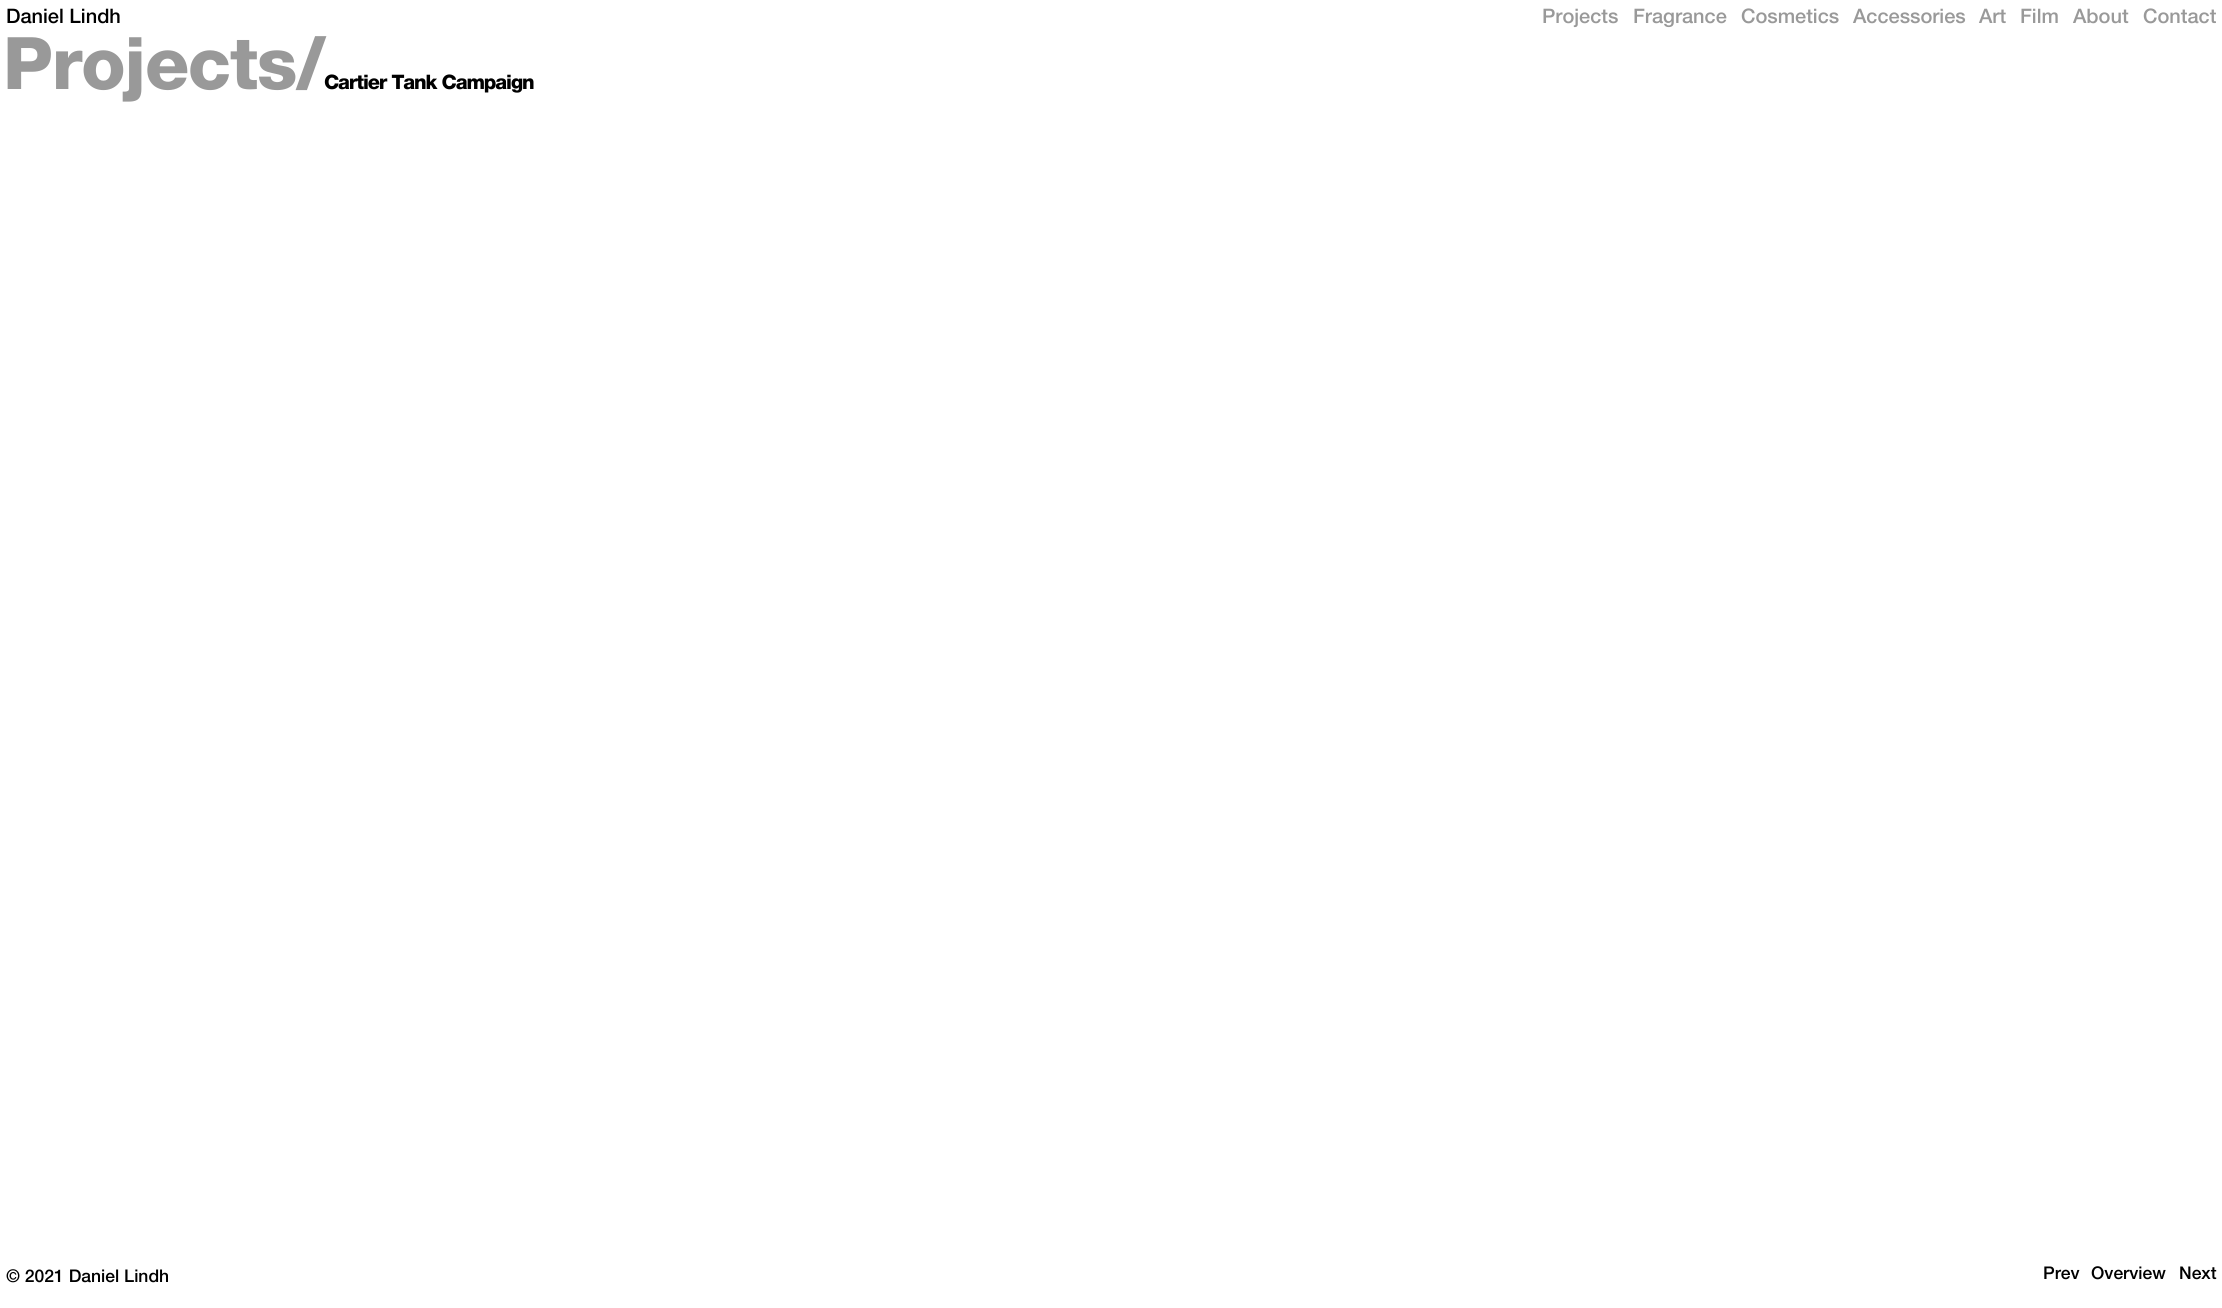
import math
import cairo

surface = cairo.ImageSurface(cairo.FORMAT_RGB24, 2222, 1308)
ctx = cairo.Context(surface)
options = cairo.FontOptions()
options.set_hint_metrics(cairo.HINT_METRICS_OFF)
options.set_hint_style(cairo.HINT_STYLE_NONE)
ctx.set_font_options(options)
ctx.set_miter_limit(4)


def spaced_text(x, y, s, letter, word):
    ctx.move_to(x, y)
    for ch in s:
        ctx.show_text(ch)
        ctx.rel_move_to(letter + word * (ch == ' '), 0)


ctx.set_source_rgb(1, 1, 1)
ctx.paint()
ctx.select_font_face("Helvetica Neue Medium")
ctx.set_font_size(20)
ctx.set_source_rgb(0, 0, 0)
ctx.move_to(6, 23)
ctx.show_text("Daniel Lindh")
ctx.set_source_rgb(0.6, 0.6, 0.6)
ctx.move_to(1542, 23)
ctx.show_text("Projects")
ctx.move_to(1633, 23)
ctx.show_text("Fragrance")
ctx.move_to(1741, 23)
ctx.show_text("Cosmetics")
ctx.move_to(1853, 23)
ctx.show_text("Accessories")
ctx.move_to(1979, 23)
ctx.show_text("Art")
ctx.move_to(2020, 23)
ctx.show_text("Film")
ctx.move_to(2073, 23)
ctx.show_text("About")
ctx.move_to(2143, 23)
ctx.show_text("Contact")
ctx.select_font_face("Helvetica Neue", cairo.FONT_SLANT_NORMAL, cairo.FONT_WEIGHT_BOLD)
ctx.set_font_size(72.5)
spaced_text(3, 89, "Projects/", -1.1, 0)
ctx.set_font_size(20)
ctx.set_source_rgb(0, 0, 0)
spaced_text(324, 89, "Cartier Tank Campaign", -1.1, 0)
ctx.select_font_face("Helvetica Neue Medium")
ctx.set_font_size(17.5)
ctx.move_to(6, 1282)
ctx.show_text("© 2021 Daniel Lindh")
ctx.move_to(2043, 1279)
ctx.show_text("Prev")
ctx.move_to(2091, 1279)
ctx.show_text("Overview")
ctx.move_to(2179, 1279)
ctx.show_text("Next")
surface.write_to_png("page.png")
